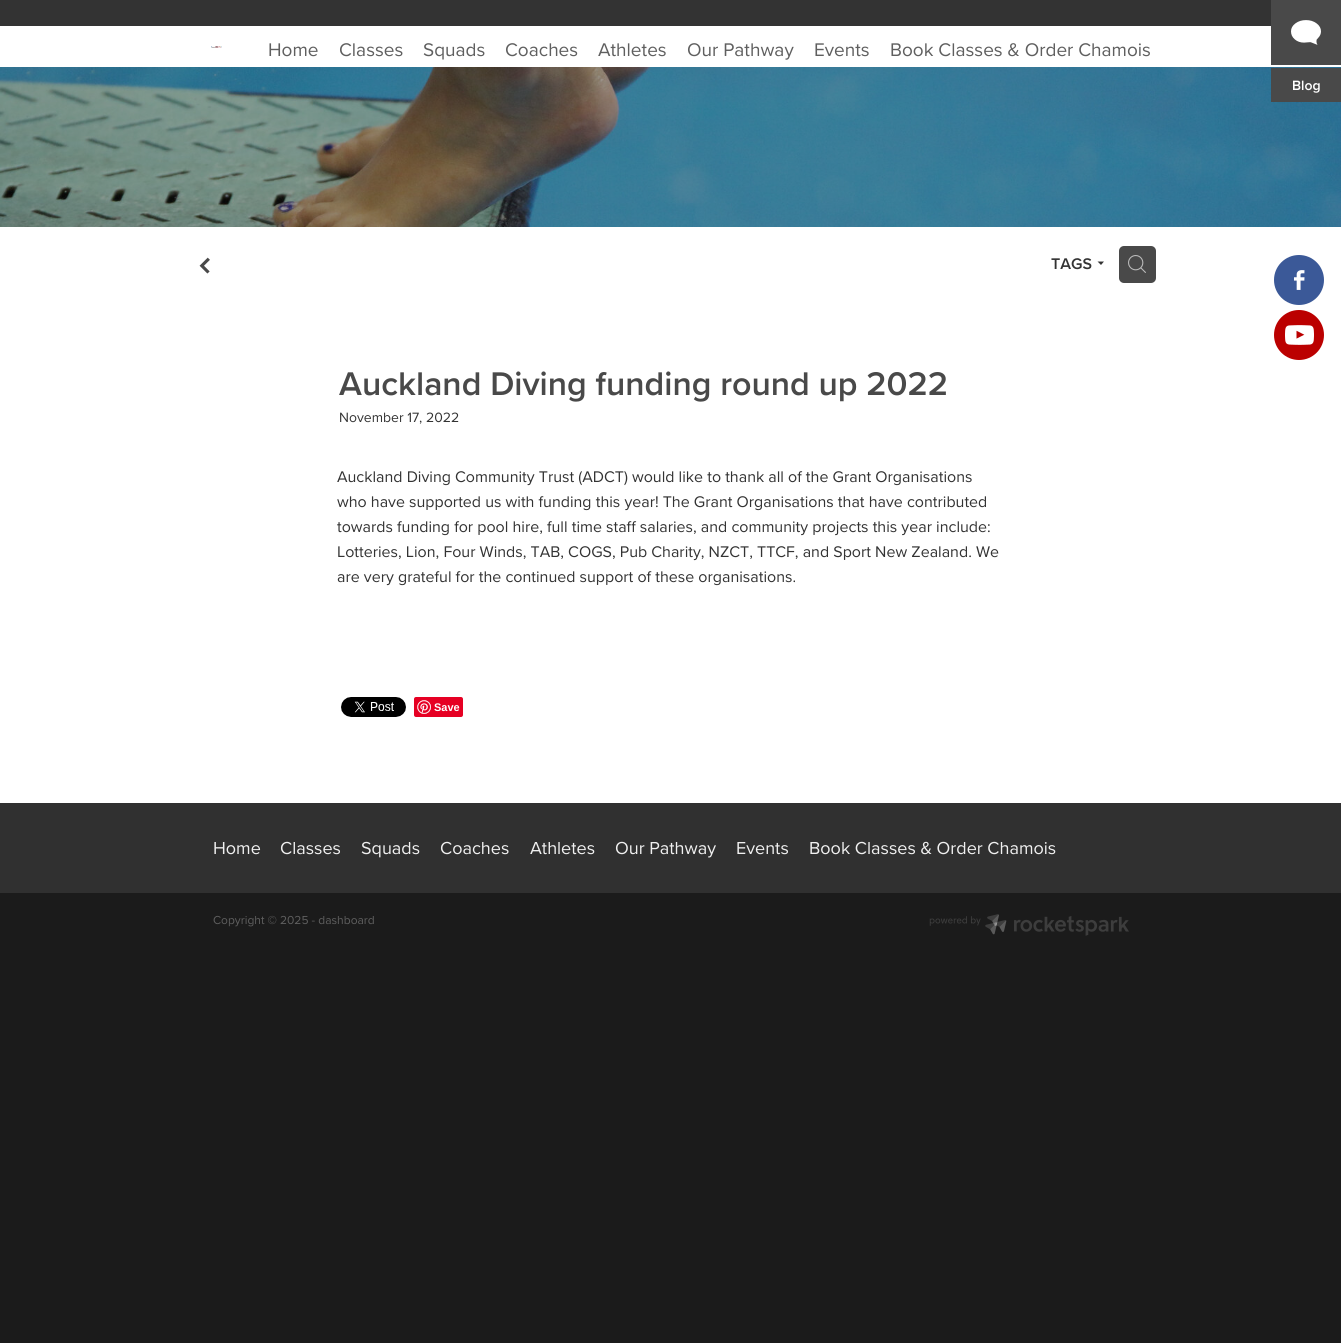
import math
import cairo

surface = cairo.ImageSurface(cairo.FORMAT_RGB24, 1341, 1343)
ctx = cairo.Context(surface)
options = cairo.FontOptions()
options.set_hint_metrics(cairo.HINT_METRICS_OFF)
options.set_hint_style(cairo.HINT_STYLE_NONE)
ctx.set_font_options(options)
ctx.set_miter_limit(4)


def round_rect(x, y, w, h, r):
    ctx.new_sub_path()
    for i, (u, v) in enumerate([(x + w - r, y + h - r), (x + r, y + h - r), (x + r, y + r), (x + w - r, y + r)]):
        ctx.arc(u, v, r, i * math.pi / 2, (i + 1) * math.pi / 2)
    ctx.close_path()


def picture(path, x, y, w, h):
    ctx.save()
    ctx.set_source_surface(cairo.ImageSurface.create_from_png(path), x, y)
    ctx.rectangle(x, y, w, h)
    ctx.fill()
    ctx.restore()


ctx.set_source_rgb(1, 1, 1)
ctx.paint()
ctx.set_source_rgb(0.2, 0.2, 0.2)
ctx.rectangle(0, 0, 1271, 26)
ctx.fill()
picture("img1.png", 211, 46, 11, 2)
ctx.select_font_face("Proxima Nova")
ctx.set_font_size(19)
ctx.set_source_rgb(0.373, 0.373, 0.373)
ctx.move_to(268, 56)
ctx.show_text("Home")
ctx.move_to(339, 56)
ctx.show_text("Classes")
ctx.move_to(423, 56)
ctx.show_text("Squads")
ctx.move_to(505, 56)
ctx.show_text("Coaches")
ctx.move_to(598, 56)
ctx.show_text("Athletes")
ctx.move_to(687, 56)
ctx.show_text("Our Pathway")
ctx.move_to(814, 56)
ctx.show_text("Events")
ctx.move_to(890, 56)
ctx.show_text("Book Classes & Order Chamois")
picture("img2.png", 0, 67, 1341, 160)
picture("img3.png", 199, 257, 11, 17)
ctx.select_font_face("Proxima Nova SemiBold")
ctx.set_font_size(16)
ctx.set_source_rgb(0.2, 0.2, 0.2)
ctx.move_to(1051, 269)
ctx.show_text("TAGS")
ctx.new_path()
ctx.move_to(1101, 265)
ctx.line_to(1097.5, 261.5)
ctx.line_to(1104, 261.5)
ctx.close_path()
ctx.fill()
ctx.set_source_rgb(0.286, 0.286, 0.286)
round_rect(1119, 246, 37, 37, 5)
ctx.fill()
picture("img4.png", 1128, 255, 18, 18)
ctx.set_font_size(34)
ctx.move_to(339, 395)
ctx.show_text("Auckland Diving funding round up 2022")
ctx.select_font_face("Proxima Nova")
ctx.set_font_size(14)
ctx.set_source_rgb(0.2, 0.2, 0.2)
ctx.move_to(339, 422)
ctx.show_text("November 17, 2022")
ctx.set_font_size(16)
ctx.move_to(337, 482)
ctx.show_text("Auckland Diving Community Trust (ADCT) would like to thank all of the Grant Organisations")
ctx.move_to(337, 507)
ctx.show_text("who have supported us with funding this year! The Grant Organisations that have contributed")
ctx.move_to(337, 532)
ctx.show_text("towards funding for pool hire, full time staff salaries, and community projects this year include:")
ctx.move_to(337, 557)
ctx.show_text("Lotteries, Lion, Four Winds, TAB, COGS, Pub Charity, NZCT, TTCF, and Sport New Zealand. We")
ctx.move_to(337, 582)
ctx.show_text("are very grateful for the continued support of these organisations.")
picture("img5.png", 341, 697, 65, 20)
ctx.set_source_rgb(0.902, 0, 0.137)
round_rect(414, 697, 49, 20, 2)
ctx.fill()
picture("img6.png", 417, 700, 14, 14)
ctx.select_font_face("Liberation Sans", cairo.FONT_SLANT_NORMAL, cairo.FONT_WEIGHT_BOLD)
ctx.set_font_size(11)
ctx.set_source_rgb(1, 1, 1)
ctx.move_to(434, 711)
ctx.show_text("Save")
ctx.set_source_rgb(0.188, 0.188, 0.188)
ctx.rectangle(0, 803, 1341, 90)
ctx.fill()
ctx.select_font_face("Proxima Nova")
ctx.set_font_size(18)
ctx.set_source_rgb(0.941, 0.941, 0.941)
ctx.move_to(213, 854)
ctx.show_text("Home")
ctx.move_to(280, 854)
ctx.show_text("Classes")
ctx.move_to(361, 854)
ctx.show_text("Squads")
ctx.move_to(440, 854)
ctx.show_text("Coaches")
ctx.move_to(530, 854)
ctx.show_text("Athletes")
ctx.move_to(615, 854)
ctx.show_text("Our Pathway")
ctx.move_to(736, 854)
ctx.show_text("Events")
ctx.move_to(809, 854)
ctx.show_text("Book Classes & Order Chamois")
ctx.set_source_rgb(0.106, 0.106, 0.106)
ctx.new_path()
ctx.move_to(-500, 893)
ctx.line_to(-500, 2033)
ctx.line_to(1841, 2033)
ctx.line_to(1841, 893)
ctx.line_to(1341, 893)
ctx.line_to(1341, 1033)
ctx.line_to(0, 1033)
ctx.line_to(0, 893)
ctx.close_path()
ctx.fill()
ctx.rectangle(0, 893, 1341, 140)
ctx.fill()
ctx.set_font_size(12)
ctx.set_source_rgb(0.373, 0.373, 0.373)
ctx.move_to(213, 924)
ctx.show_text("Copyright © 2025 - dashboard")
picture("img7.png", 929, 914, 200, 22)
ctx.set_source_rgb(0.286, 0.286, 0.286)
ctx.rectangle(1271, 0, 70, 65)
ctx.fill()
picture("img8.png", 1291, 20, 30, 25)
ctx.new_path()
ctx.move_to(1284.5, 33)
ctx.line_to(1286, 31.5)
ctx.line_to(1309.5, 55)
ctx.line_to(1308, 56.5)
ctx.close_path()
ctx.fill()
ctx.rectangle(1271, 68, 70, 34)
ctx.fill()
ctx.select_font_face("Proxima Nova SemiBold")
ctx.set_font_size(14)
ctx.set_source_rgb(1, 1, 1)
ctx.move_to(1292, 90)
ctx.show_text("Blog")
ctx.set_source_rgb(0.231, 0.349, 0.596)
ctx.new_path()
ctx.arc(1299, 280, 25, 0, 2 * math.pi)
ctx.fill()
picture("img9.png", 1294, 270, 11, 20)
ctx.set_source_rgb(0.733, 0, 0)
ctx.arc(1299, 335, 25, 0, 2 * math.pi)
ctx.fill()
picture("img10.png", 1285, 325, 29, 20)
surface.write_to_png("page.png")
